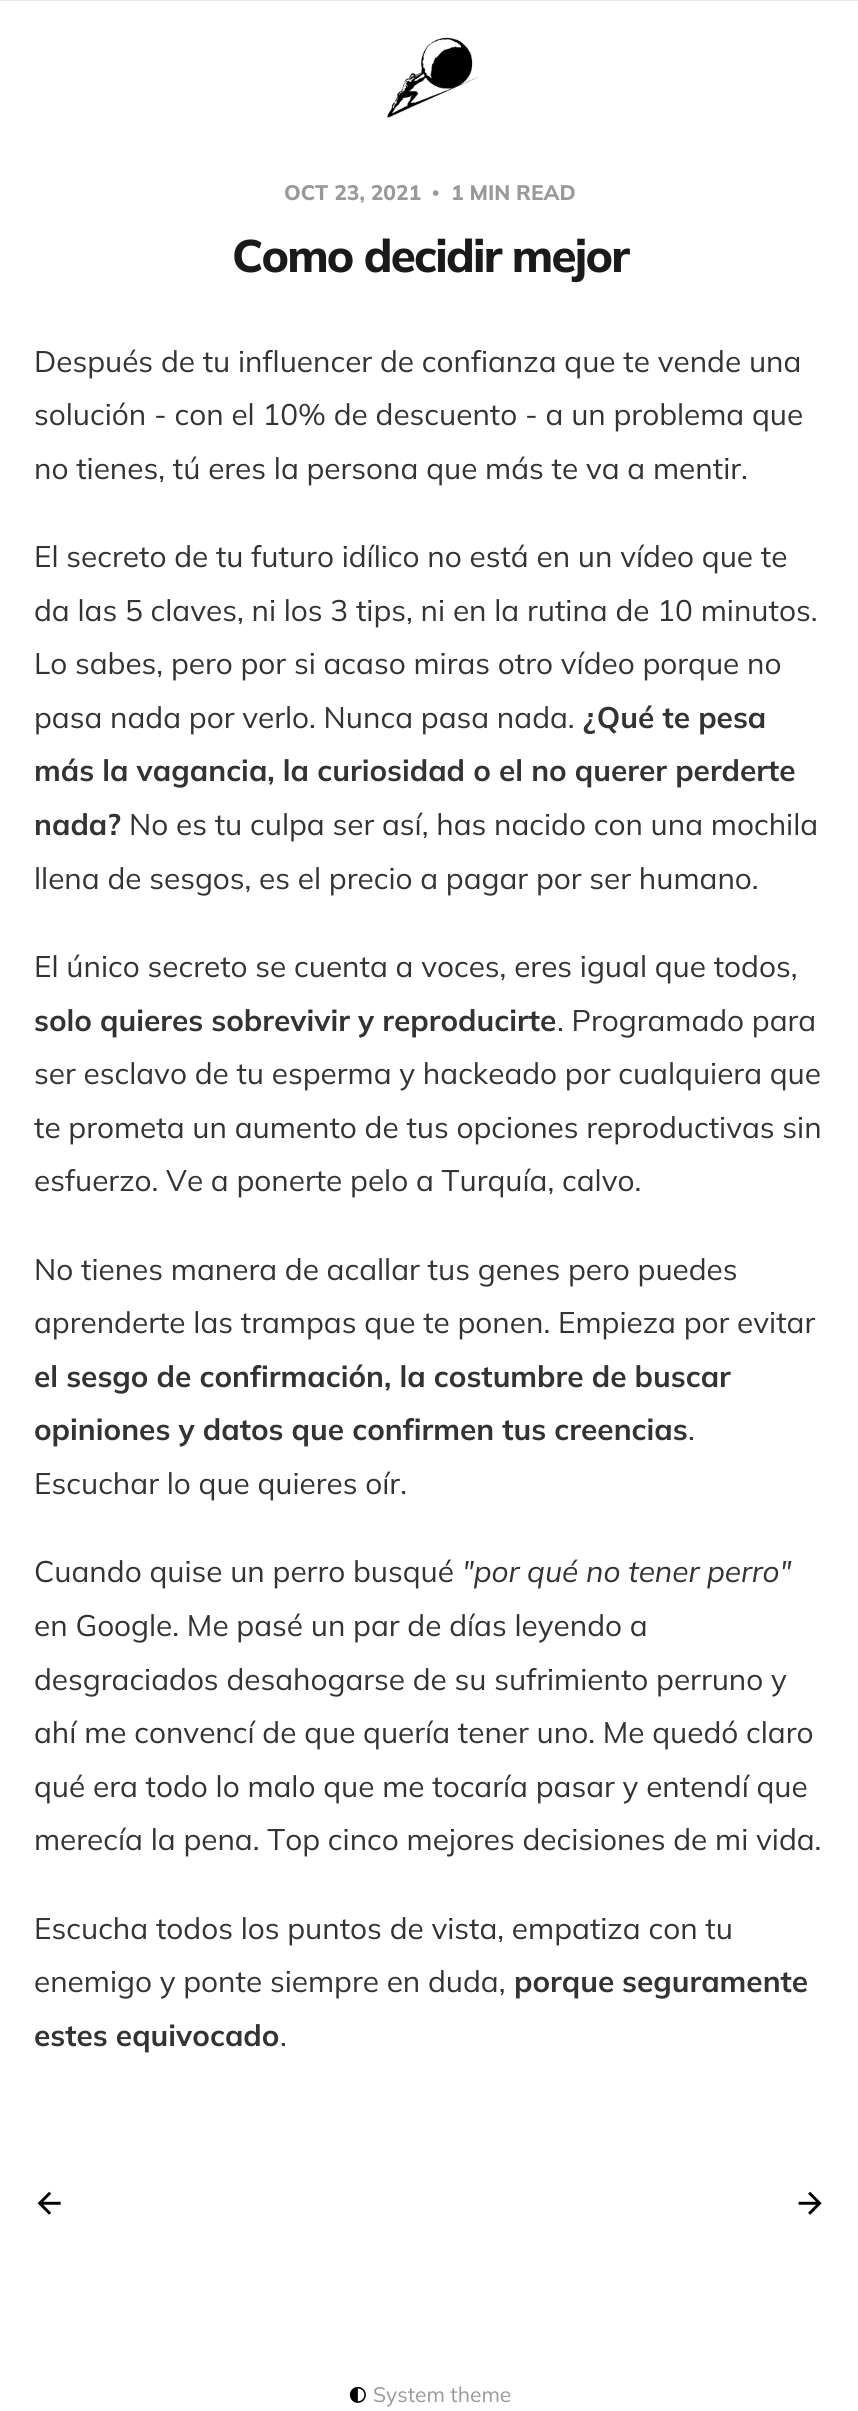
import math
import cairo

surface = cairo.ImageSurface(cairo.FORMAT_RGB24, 858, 2411)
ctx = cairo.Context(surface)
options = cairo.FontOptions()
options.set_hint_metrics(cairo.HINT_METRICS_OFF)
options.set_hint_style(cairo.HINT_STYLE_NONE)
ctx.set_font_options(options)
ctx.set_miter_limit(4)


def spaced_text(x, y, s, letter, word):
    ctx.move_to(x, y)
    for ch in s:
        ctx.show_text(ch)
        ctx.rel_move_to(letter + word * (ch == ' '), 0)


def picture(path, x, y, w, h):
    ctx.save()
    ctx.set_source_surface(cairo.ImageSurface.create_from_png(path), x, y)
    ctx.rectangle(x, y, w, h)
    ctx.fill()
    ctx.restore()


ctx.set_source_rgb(1, 1, 1)
ctx.paint()
ctx.set_source_rgb(0.902, 0.902, 0.902)
ctx.rectangle(0, 0, 858, 1)
ctx.fill()
picture("img1.png", 387, 37, 92, 81)
ctx.select_font_face("Mulish ExtraBold")
ctx.set_font_size(21)
ctx.set_source_rgb(0.6, 0.6, 0.6)
ctx.move_to(284, 200)
ctx.show_text("OCT 23, 2021")
ctx.select_font_face("Liberation Serif", cairo.FONT_SLANT_NORMAL, cairo.FONT_WEIGHT_BOLD)
ctx.move_to(432, 200)
ctx.show_text("•")
ctx.select_font_face("Mulish ExtraBold")
ctx.move_to(451, 200)
ctx.show_text("1 MIN READ")
ctx.set_font_size(45.5)
ctx.set_source_rgb(0.102, 0.102, 0.102)
spaced_text(232, 272, "Como decidir mejor", -1.75, 0)
ctx.select_font_face("Mulish")
ctx.set_font_size(29.75)
ctx.set_source_rgb(0.2, 0.2, 0.2)
ctx.move_to(34, 372)
ctx.show_text("Después de tu influencer de confianza que te vende una")
ctx.move_to(34, 425)
ctx.show_text("solución - con el 10% de descuento - a un problema que")
ctx.move_to(34, 479)
ctx.show_text("no tienes, tú eres la persona que más te va a mentir.")
ctx.move_to(34, 567)
ctx.show_text("El secreto de tu futuro idílico no está en un vídeo que te")
ctx.move_to(34, 621)
ctx.show_text("da las 5 claves, ni los 3 tips, ni en la rutina de 10 minutos.")
ctx.move_to(34, 674)
ctx.show_text("Lo sabes, pero por si acaso miras otro vídeo porque no")
ctx.move_to(34, 728)
ctx.show_text("pasa nada por verlo. Nunca pasa nada.")
ctx.select_font_face("Mulish", cairo.FONT_SLANT_NORMAL, cairo.FONT_WEIGHT_BOLD)
ctx.move_to(583, 728)
ctx.show_text("¿Qué te pesa")
ctx.move_to(34, 781)
ctx.show_text("más la vagancia, la curiosidad o el no querer perderte")
ctx.move_to(34, 835)
ctx.show_text("nada?")
ctx.select_font_face("Mulish")
ctx.move_to(129, 835)
ctx.show_text("No es tu culpa ser así, has nacido con una mochila")
ctx.move_to(34, 889)
ctx.show_text("llena de sesgos, es el precio a pagar por ser humano.")
ctx.move_to(34, 977)
ctx.show_text("El único secreto se cuenta a voces, eres igual que todos,")
ctx.select_font_face("Mulish", cairo.FONT_SLANT_NORMAL, cairo.FONT_WEIGHT_BOLD)
ctx.move_to(34, 1031)
ctx.show_text("solo quieres sobrevivir y reproducirte")
ctx.select_font_face("Mulish")
ctx.move_to(557, 1031)
ctx.show_text(". Programado para")
ctx.move_to(34, 1084)
ctx.show_text("ser esclavo de tu esperma y hackeado por cualquiera que")
ctx.move_to(34, 1138)
ctx.show_text("te prometa un aumento de tus opciones reproductivas sin")
ctx.move_to(34, 1191)
ctx.show_text("esfuerzo. Ve a ponerte pelo a Turquía, calvo.")
ctx.move_to(34, 1280)
ctx.show_text("No tienes manera de acallar tus genes pero puedes")
ctx.move_to(34, 1333)
ctx.show_text("aprenderte las trampas que te ponen. Empieza por evitar")
ctx.select_font_face("Mulish", cairo.FONT_SLANT_NORMAL, cairo.FONT_WEIGHT_BOLD)
ctx.move_to(34, 1387)
ctx.show_text("el sesgo de confirmación, la costumbre de buscar")
ctx.move_to(34, 1440)
ctx.show_text("opiniones y datos que confirmen tus creencias")
ctx.select_font_face("Mulish")
ctx.move_to(688, 1440)
ctx.show_text(".")
ctx.move_to(34, 1494)
ctx.show_text("Escuchar lo que quieres oír.")
ctx.move_to(34, 1582)
ctx.show_text("Cuando quise un perro busqué")
ctx.select_font_face("Mulish", cairo.FONT_SLANT_ITALIC)
ctx.move_to(462, 1582)
ctx.show_text("\"por qué no tener perro\"")
ctx.select_font_face("Mulish")
ctx.move_to(34, 1636)
ctx.show_text("en Google. Me pasé un par de días leyendo a")
ctx.move_to(34, 1690)
ctx.show_text("desgraciados desahogarse de su sufrimiento perruno y")
ctx.move_to(34, 1743)
ctx.show_text("ahí me convencí de que quería tener uno. Me quedó claro")
ctx.move_to(34, 1797)
ctx.show_text("qué era todo lo malo que me tocaría pasar y entendí que")
ctx.move_to(34, 1850)
ctx.show_text("merecía la pena. Top cinco mejores decisiones de mi vida.")
ctx.move_to(34, 1939)
ctx.show_text("Escucha todos los puntos de vista, empatiza con tu")
ctx.move_to(34, 1992)
ctx.show_text("enemigo y ponte siempre en duda,")
ctx.select_font_face("Mulish", cairo.FONT_SLANT_NORMAL, cairo.FONT_WEIGHT_BOLD)
ctx.move_to(514, 1992)
ctx.show_text("porque")
ctx.move_to(622, 1992)
ctx.show_text("seguramente")
ctx.move_to(34, 2046)
ctx.show_text("estes equivocado")
ctx.select_font_face("Mulish")
ctx.move_to(280, 2046)
ctx.show_text(".")
picture("img2.png", 37, 2191, 24, 24)
picture("img3.png", 798, 2191, 24, 24)
picture("img4.png", 349, 2386, 17, 17)
ctx.set_font_size(21)
ctx.set_source_rgb(0.6, 0.6, 0.6)
ctx.move_to(373, 2402)
ctx.show_text("System theme")
surface.write_to_png("page.png")
